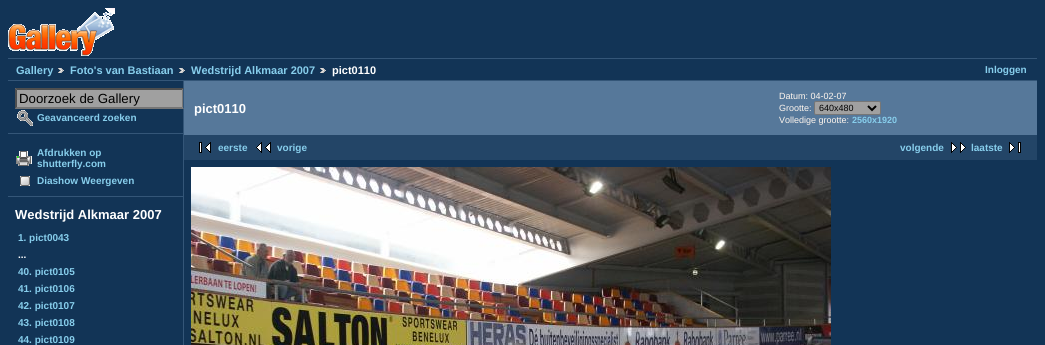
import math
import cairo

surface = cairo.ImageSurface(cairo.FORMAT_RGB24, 1045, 345)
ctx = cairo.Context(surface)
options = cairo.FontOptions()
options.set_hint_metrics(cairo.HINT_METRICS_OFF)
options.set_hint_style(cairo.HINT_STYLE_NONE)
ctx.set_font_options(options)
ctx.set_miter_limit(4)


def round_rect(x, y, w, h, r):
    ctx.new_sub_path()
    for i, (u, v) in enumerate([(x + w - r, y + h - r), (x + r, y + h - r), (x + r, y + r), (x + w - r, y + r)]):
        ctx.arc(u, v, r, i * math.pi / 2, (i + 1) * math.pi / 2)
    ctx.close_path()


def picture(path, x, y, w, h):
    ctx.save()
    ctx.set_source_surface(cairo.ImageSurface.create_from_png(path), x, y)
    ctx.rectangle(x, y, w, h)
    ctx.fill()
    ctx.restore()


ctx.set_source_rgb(0.071, 0.204, 0.337)
ctx.paint()
picture("img1.png", 8, 8, 107, 48)
ctx.set_source_rgb(0.204, 0.337, 0.471)
ctx.rectangle(8, 58, 1029, 1)
ctx.fill()
ctx.rectangle(8, 80, 1029, 1)
ctx.fill()
ctx.select_font_face("Liberation Sans", cairo.FONT_SLANT_NORMAL, cairo.FONT_WEIGHT_BOLD)
ctx.set_font_size(11)
ctx.set_source_rgb(0.529, 0.808, 0.922)
ctx.move_to(16, 74)
ctx.show_text("Gallery")
picture("img2.png", 58, 68, 6, 5)
ctx.move_to(70, 74)
ctx.show_text("Foto's van Bastiaan")
picture("img2.png", 179, 68, 6, 5)
ctx.move_to(191, 74)
ctx.show_text("Wedstrijd Alkmaar 2007")
picture("img2.png", 320, 68, 6, 5)
ctx.set_source_rgb(1, 1, 1)
ctx.move_to(332, 74)
ctx.show_text("pict0110")
ctx.set_font_size(10)
ctx.set_source_rgb(0.529, 0.808, 0.922)
ctx.move_to(985, 73)
ctx.show_text("Inloggen")
ctx.set_source_rgb(0.204, 0.337, 0.471)
ctx.rectangle(183, 81, 1, 264)
ctx.fill()
ctx.rectangle(8, 133, 175, 1)
ctx.fill()
ctx.set_source_rgb(0.627, 0.627, 0.627)
ctx.rectangle(15, 88, 168, 21)
ctx.fill()
ctx.set_source_rgb(0.31, 0.31, 0.31)
ctx.new_path()
ctx.move_to(15, 88)
ctx.line_to(184, 88)
ctx.line_to(182, 90)
ctx.line_to(17, 90)
ctx.close_path()
ctx.fill()
ctx.save()
ctx.rectangle(8, 81, 175, 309)
ctx.clip()
ctx.set_source_rgb(0.463, 0.463, 0.463)
ctx.new_path()
ctx.move_to(184, 88)
ctx.line_to(184, 109)
ctx.line_to(182, 107)
ctx.line_to(182, 90)
ctx.close_path()
ctx.fill()
ctx.restore()
ctx.set_source_rgb(0.463, 0.463, 0.463)
ctx.new_path()
ctx.move_to(184, 109)
ctx.line_to(15, 109)
ctx.line_to(17, 107)
ctx.line_to(182, 107)
ctx.close_path()
ctx.fill()
ctx.set_source_rgb(0.31, 0.31, 0.31)
ctx.new_path()
ctx.move_to(15, 109)
ctx.line_to(15, 88)
ctx.line_to(17, 90)
ctx.line_to(17, 107)
ctx.close_path()
ctx.fill()
ctx.select_font_face("Liberation Sans")
ctx.set_font_size(13.25)
ctx.set_source_rgb(0, 0, 0)
ctx.move_to(19, 103)
ctx.show_text("Doorzoek de Gallery")
picture("img3.png", 17, 110, 16, 16)
ctx.select_font_face("Liberation Sans", cairo.FONT_SLANT_NORMAL, cairo.FONT_WEIGHT_BOLD)
ctx.set_font_size(10)
ctx.set_source_rgb(0.529, 0.808, 0.922)
ctx.move_to(37, 121)
ctx.show_text("Geavanceerd zoeken")
ctx.set_source_rgb(0.204, 0.337, 0.471)
ctx.rectangle(8, 196, 175, 1)
ctx.fill()
picture("img4.png", 16, 151, 16, 15)
ctx.set_source_rgb(0.529, 0.808, 0.922)
ctx.move_to(37, 156)
ctx.show_text("Afdrukken op")
ctx.move_to(37, 167)
ctx.show_text("shutterfly.com")
picture("img5.png", 20, 176, 10, 10)
ctx.move_to(37, 184)
ctx.show_text("Diashow Weergeven")
ctx.set_font_size(13)
ctx.set_source_rgb(1, 1, 1)
ctx.move_to(15, 219)
ctx.show_text("Wedstrijd Alkmaar 2007")
ctx.set_font_size(10)
ctx.set_source_rgb(0.529, 0.808, 0.922)
ctx.move_to(18, 241)
ctx.show_text("1. pict0043")
ctx.set_source_rgb(1, 1, 1)
ctx.move_to(18, 258)
ctx.show_text("...")
ctx.set_source_rgb(0.529, 0.808, 0.922)
ctx.move_to(18, 275)
ctx.show_text("40. pict0105")
ctx.move_to(18, 292)
ctx.show_text("41. pict0106")
ctx.move_to(18, 309)
ctx.show_text("42. pict0107")
ctx.move_to(18, 326)
ctx.show_text("43. pict0108")
ctx.move_to(18, 343)
ctx.show_text("44. pict0109")
ctx.set_source_rgb(0.337, 0.471, 0.604)
ctx.rectangle(184, 81, 853, 54)
ctx.fill()
ctx.set_font_size(13)
ctx.set_source_rgb(1, 1, 1)
ctx.move_to(194, 113)
ctx.show_text("pict0110")
ctx.select_font_face("Liberation Sans")
ctx.set_font_size(9)
ctx.set_source_rgb(1, 0.961, 0.933)
ctx.move_to(779, 99)
ctx.show_text("Datum: 04-02-07")
ctx.move_to(779, 111)
ctx.show_text("Grootte:")
ctx.set_source_rgb(0.627, 0.627, 0.627)
round_rect(814.5, 101.5, 66, 13, 1.5)
ctx.fill_preserve()
ctx.set_source_rgb(0.463, 0.463, 0.463)
ctx.set_line_width(1)
ctx.stroke()
ctx.new_path()
ctx.move_to(868, 106)
ctx.line_to(872, 110)
ctx.line_to(876, 106)
ctx.set_source_rgb(0, 0, 0)
ctx.set_line_width(2)
ctx.stroke()
ctx.move_to(819, 111)
ctx.show_text("640x480")
ctx.set_source_rgb(1, 0.961, 0.933)
ctx.move_to(779, 123)
ctx.show_text("Volledige grootte:")
ctx.select_font_face("Liberation Sans", cairo.FONT_SLANT_NORMAL, cairo.FONT_WEIGHT_BOLD)
ctx.set_source_rgb(0.529, 0.808, 0.922)
ctx.move_to(852, 123)
ctx.show_text("2560x1920")
ctx.set_source_rgb(0.137, 0.271, 0.404)
ctx.rectangle(184, 135, 853, 25)
ctx.fill()
picture("img6.png", 199, 142, 12, 11)
ctx.set_font_size(10)
ctx.set_source_rgb(0.529, 0.808, 0.922)
ctx.move_to(218, 151)
ctx.show_text("eerste")
picture("img7.png", 256, 142, 15, 11)
ctx.move_to(277, 151)
ctx.show_text("vorige")
ctx.move_to(900, 151)
ctx.show_text("volgende")
picture("img8.png", 951, 142, 15, 11)
ctx.move_to(971, 151)
ctx.show_text("laatste")
picture("img9.png", 1009, 142, 12, 11)
picture("img10.png", 191, 167, 640, 178)
surface.write_to_png("page.png")
